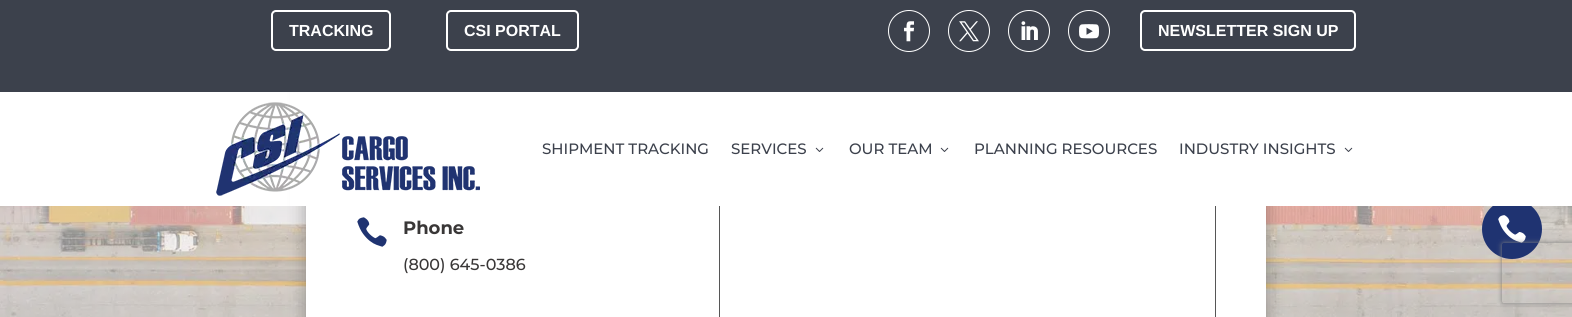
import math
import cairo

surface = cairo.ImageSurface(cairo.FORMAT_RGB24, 1572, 317)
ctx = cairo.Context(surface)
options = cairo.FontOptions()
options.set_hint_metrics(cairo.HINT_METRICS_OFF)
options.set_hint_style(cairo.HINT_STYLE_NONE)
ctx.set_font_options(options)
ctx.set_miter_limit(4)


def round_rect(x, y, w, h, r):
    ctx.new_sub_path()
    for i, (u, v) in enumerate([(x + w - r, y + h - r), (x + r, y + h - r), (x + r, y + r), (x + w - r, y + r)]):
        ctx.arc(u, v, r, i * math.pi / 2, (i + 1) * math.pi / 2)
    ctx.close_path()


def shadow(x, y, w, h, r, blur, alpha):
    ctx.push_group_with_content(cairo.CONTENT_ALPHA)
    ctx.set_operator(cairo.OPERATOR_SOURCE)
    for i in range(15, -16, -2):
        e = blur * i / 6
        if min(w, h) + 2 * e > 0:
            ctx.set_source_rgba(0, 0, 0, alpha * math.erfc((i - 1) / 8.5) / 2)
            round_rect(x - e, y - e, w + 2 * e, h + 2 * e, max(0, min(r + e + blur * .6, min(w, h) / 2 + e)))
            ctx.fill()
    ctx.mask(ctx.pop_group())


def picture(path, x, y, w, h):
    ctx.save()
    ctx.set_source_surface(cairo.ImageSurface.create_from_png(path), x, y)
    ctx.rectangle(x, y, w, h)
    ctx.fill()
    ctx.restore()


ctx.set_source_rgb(1, 1, 1)
ctx.paint()
picture("img7.png", 0, 206, 1572, 111)
ctx.set_source_rgb(0, 0, 0)
shadow(306, -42, 960, 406, 20, 9, 0.3)
ctx.set_source_rgb(0.235, 0.255, 0.298)
ctx.rectangle(0, 0, 1572, 92)
ctx.fill()
round_rect(272, 11, 118, 39, 4)
ctx.set_source_rgb(1, 1, 1)
ctx.stroke()
ctx.select_font_face("Liberation Sans", cairo.FONT_SLANT_NORMAL, cairo.FONT_WEIGHT_BOLD)
ctx.set_font_size(16)
ctx.move_to(289, 36)
ctx.show_text("TRACKING")
round_rect(447, 11, 131, 39, 4)
ctx.stroke()
ctx.move_to(464, 36)
ctx.show_text("CSI PORTAL")
ctx.new_path()
ctx.arc(909, 31, 20.5, 0, 2 * math.pi)
ctx.set_line_width(1)
ctx.stroke()
picture("img1.png", 904, 21, 10, 21)
ctx.arc(969, 31, 20.5, 0, 2 * math.pi)
ctx.stroke()
picture("img2.png", 959, 21, 20, 21)
ctx.arc(1029, 31, 20.5, 0, 2 * math.pi)
ctx.stroke()
picture("img3.png", 1021, 21, 17, 19)
ctx.arc(1089, 31, 20.5, 0, 2 * math.pi)
ctx.stroke()
picture("img4.png", 1079, 24, 20, 15)
round_rect(1141, 11, 214, 39, 4)
ctx.set_line_width(2)
ctx.stroke()
ctx.move_to(1158, 36)
ctx.show_text("NEWSLETTER SIGN UP")
ctx.rectangle(306, 206, 960, 111)
ctx.fill()
ctx.rectangle(719.5, 162.5, 496, 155)
ctx.set_source_rgb(0.337, 0.337, 0.337)
ctx.set_line_width(1)
ctx.stroke()
ctx.set_source_rgb(0.122, 0.2, 0.443)
ctx.arc(1512, 229, 30, 0, 2 * math.pi)
ctx.fill()
ctx.set_source_rgb(1, 1, 1)
ctx.rectangle(290, 92, 1242, 114)
ctx.fill()
picture("img5.png", 216, 102, 264, 94)
ctx.select_font_face("Montserrat Medium")
ctx.set_font_size(15)
ctx.set_source_rgb(0.235, 0.255, 0.298)
ctx.move_to(542, 154)
ctx.show_text("SHIPMENT TRACKING")
ctx.move_to(731, 154)
ctx.show_text("SERVICES")
picture("img6.png", 815, 147, 9, 5)
ctx.move_to(849, 154)
ctx.show_text("OUR TEAM")
picture("img6.png", 940, 147, 9, 5)
ctx.move_to(974, 154)
ctx.show_text("PLANNING RESOURCES")
ctx.move_to(1179, 154)
ctx.show_text("INDUSTRY INSIGHTS")
picture("img6.png", 1344, 147, 9, 5)
picture("img8.png", 357, 217, 30, 30)
ctx.select_font_face("Montserrat", cairo.FONT_SLANT_NORMAL, cairo.FONT_WEIGHT_BOLD)
ctx.set_font_size(18)
ctx.set_source_rgb(0.224, 0.216, 0.216)
ctx.move_to(403, 234)
ctx.show_text("Phone")
ctx.select_font_face("Montserrat Medium")
ctx.set_font_size(16)
ctx.move_to(403, 270)
ctx.show_text("(800) 645-0386")
picture("img9.png", 1498, 215, 28, 28)
ctx.save()
ctx.set_fill_rule(cairo.FILL_RULE_EVEN_ODD)
ctx.new_path()
ctx.move_to(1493, 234)
ctx.line_to(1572, 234)
ctx.line_to(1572, 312)
ctx.line_to(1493, 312)
ctx.close_path()
ctx.move_to(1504, 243)
ctx.line_to(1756, 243)
ctx.curve_to(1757, 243, 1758, 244, 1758, 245)
ctx.line_to(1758, 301)
ctx.curve_to(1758, 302, 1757, 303, 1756, 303)
ctx.line_to(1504, 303)
ctx.curve_to(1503, 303, 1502, 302, 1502, 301)
ctx.line_to(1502, 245)
ctx.curve_to(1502, 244, 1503, 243, 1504, 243)
ctx.close_path()
ctx.clip()
ctx.set_source_rgb(0.502, 0.502, 0.502)
shadow(1502, 243, 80, 60, 2, 2.5, 1)
ctx.restore()
surface.write_to_png("page.png")
